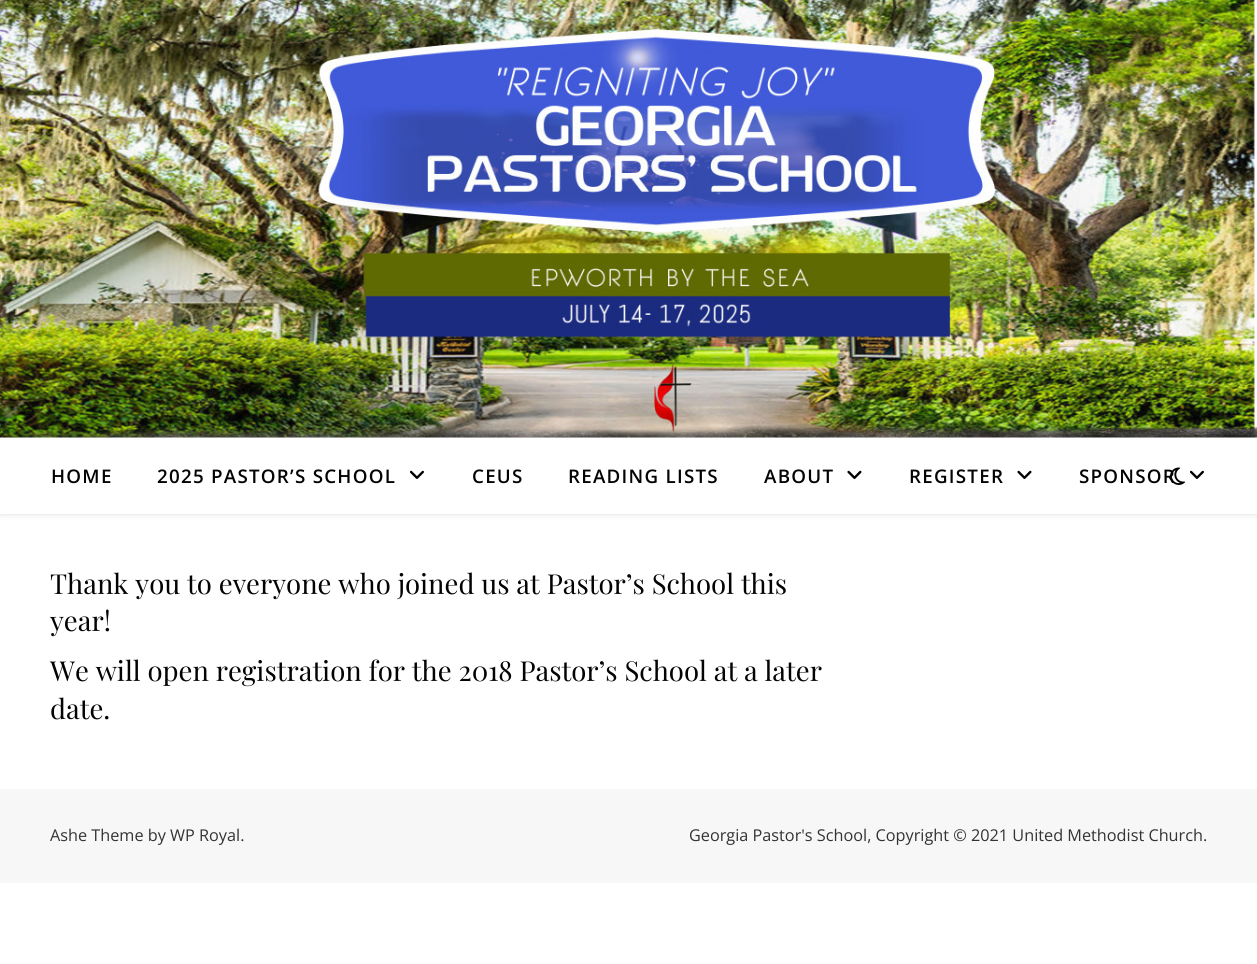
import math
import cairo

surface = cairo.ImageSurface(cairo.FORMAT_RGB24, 1257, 964)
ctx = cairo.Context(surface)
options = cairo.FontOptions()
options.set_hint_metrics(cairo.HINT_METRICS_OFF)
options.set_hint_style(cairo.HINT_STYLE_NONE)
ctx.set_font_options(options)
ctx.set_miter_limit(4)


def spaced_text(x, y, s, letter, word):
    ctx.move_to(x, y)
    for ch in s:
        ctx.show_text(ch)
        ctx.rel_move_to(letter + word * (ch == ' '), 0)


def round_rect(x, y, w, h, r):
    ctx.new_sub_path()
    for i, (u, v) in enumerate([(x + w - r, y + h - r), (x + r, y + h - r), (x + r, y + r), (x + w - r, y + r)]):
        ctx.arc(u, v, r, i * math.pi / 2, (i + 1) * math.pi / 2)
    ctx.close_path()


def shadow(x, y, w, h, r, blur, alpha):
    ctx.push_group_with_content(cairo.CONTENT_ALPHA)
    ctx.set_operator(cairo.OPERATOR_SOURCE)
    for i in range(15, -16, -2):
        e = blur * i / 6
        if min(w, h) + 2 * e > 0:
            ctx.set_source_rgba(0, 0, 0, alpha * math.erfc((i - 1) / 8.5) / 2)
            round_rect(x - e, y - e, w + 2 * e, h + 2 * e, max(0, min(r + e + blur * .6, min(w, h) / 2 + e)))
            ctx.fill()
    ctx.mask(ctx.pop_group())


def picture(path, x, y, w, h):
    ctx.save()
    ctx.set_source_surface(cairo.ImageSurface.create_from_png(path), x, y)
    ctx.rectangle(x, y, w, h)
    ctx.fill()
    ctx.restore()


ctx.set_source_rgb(1, 1, 1)
ctx.paint()
picture("img1.png", 0, 0, 1257, 438)
ctx.set_source_rgb(0, 0, 0)
shadow(0, 439, 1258, 76, 0, 3, 0.1)
ctx.set_source_rgb(1, 1, 1)
ctx.rectangle(0, 438, 1257, 76)
ctx.fill()
ctx.select_font_face("Open Sans SemiBold")
ctx.set_font_size(18.75)
ctx.set_source_rgb(0.012, 0.012, 0.012)
spaced_text(51, 483, "HOME", 1.25, 0)
spaced_text(157, 483, "2025 PASTOR’S SCHOOL", 1.25, 0)
picture("img2.png", 410, 470, 14, 9)
spaced_text(472, 483, "CEUS", 1.25, 0)
spaced_text(568, 483, "READING LISTS", 1.25, 0)
spaced_text(764, 483, "ABOUT", 1.25, 0)
picture("img3.png", 847, 470, 15, 9)
spaced_text(909, 483, "REGISTER", 1.25, 0)
picture("img3.png", 1017, 470, 15, 9)
spaced_text(1079, 483, "SPONSOR", 1.25, 0)
picture("img2.png", 1190, 470, 14, 9)
picture("img4.png", 1170, 467, 15, 18)
ctx.select_font_face("Playfair Display")
ctx.set_font_size(27.5)
ctx.move_to(50, 594)
ctx.show_text("Thank you to everyone who joined us at Pastor’s School this")
ctx.move_to(50, 631)
ctx.show_text("year!")
ctx.move_to(50, 681)
ctx.show_text("We will open registration for the 2018 Pastor’s School at a later")
ctx.move_to(50, 719)
ctx.show_text("date.")
ctx.set_source_rgb(0.965, 0.965, 0.965)
ctx.rectangle(0, 789, 1257, 94)
ctx.fill()
ctx.select_font_face("Open Sans")
ctx.set_font_size(16.25)
ctx.set_source_rgb(0.2, 0.2, 0.2)
ctx.move_to(50, 841)
ctx.show_text("Ashe Theme by WP Royal.")
ctx.move_to(689, 841)
ctx.show_text("Georgia Pastor's School, Copyright © 2021 United Methodist Church.")
surface.write_to_png("page.png")
